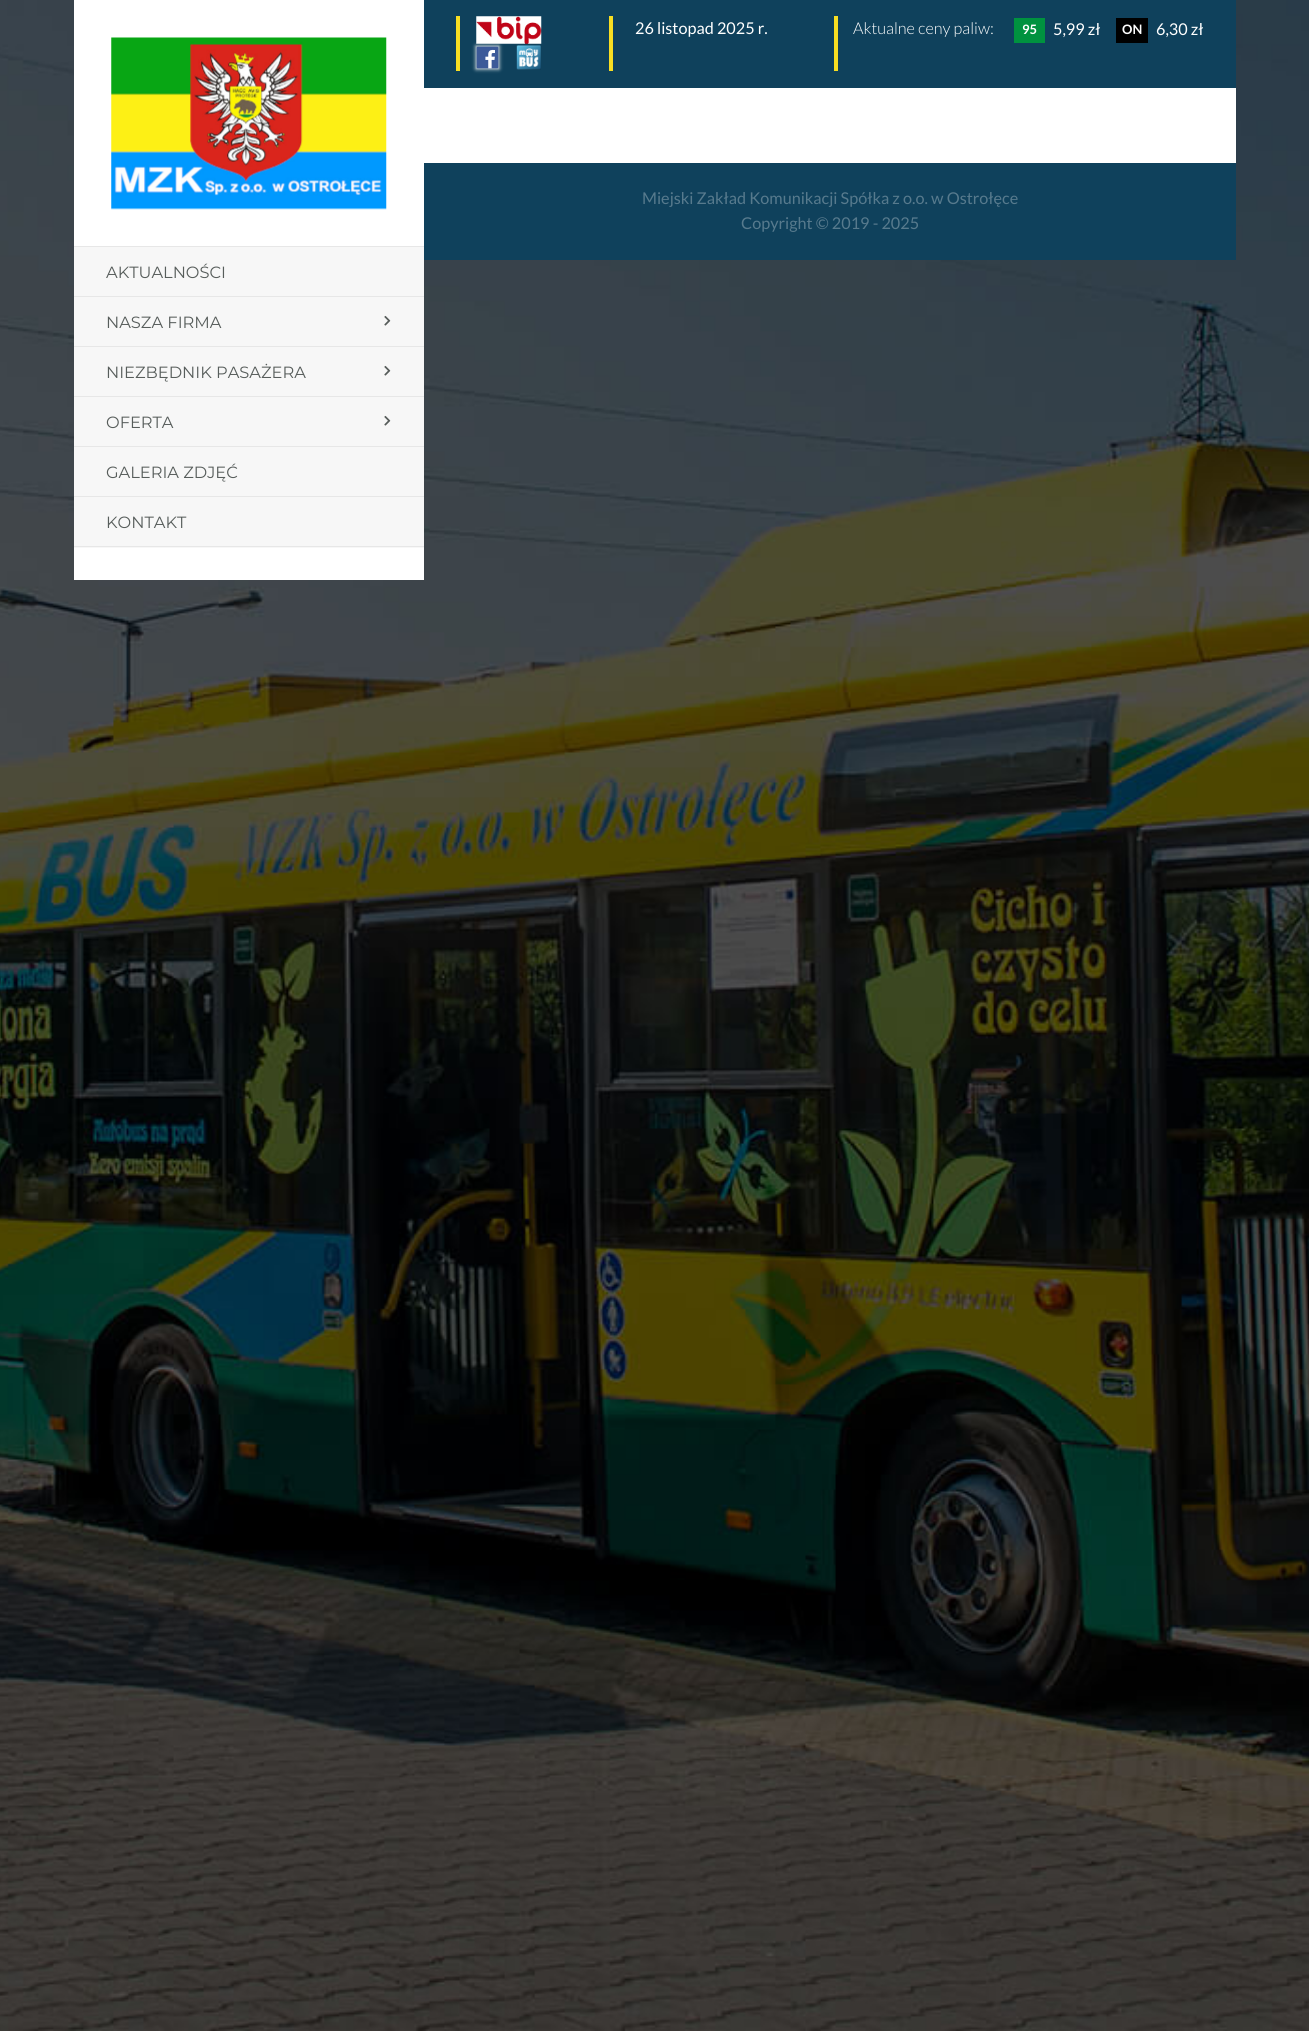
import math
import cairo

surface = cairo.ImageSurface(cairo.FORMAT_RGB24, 1309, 2031)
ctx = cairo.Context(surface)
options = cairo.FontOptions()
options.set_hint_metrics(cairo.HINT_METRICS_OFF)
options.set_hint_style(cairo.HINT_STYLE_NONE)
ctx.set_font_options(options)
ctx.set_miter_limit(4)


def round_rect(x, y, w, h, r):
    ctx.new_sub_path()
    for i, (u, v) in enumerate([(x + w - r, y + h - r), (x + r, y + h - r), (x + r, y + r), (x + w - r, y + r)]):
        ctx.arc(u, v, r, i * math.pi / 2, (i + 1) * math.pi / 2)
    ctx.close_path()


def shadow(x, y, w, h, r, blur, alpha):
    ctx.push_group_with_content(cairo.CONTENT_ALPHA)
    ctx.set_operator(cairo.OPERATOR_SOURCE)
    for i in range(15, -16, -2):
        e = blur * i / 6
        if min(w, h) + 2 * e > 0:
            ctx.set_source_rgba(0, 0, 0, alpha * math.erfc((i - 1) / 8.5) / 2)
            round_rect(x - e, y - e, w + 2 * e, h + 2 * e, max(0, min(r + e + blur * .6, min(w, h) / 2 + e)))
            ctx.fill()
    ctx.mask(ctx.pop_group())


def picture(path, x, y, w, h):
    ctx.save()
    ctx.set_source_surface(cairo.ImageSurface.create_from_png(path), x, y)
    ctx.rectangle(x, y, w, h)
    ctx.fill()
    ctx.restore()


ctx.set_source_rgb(1, 1, 1)
ctx.paint()
picture("img1.png", 0, 0, 1309, 2031)
ctx.set_source_rgb(1, 1, 1)
ctx.rectangle(424, 88, 812, 75)
ctx.fill()
ctx.set_source_rgb(0.059, 0.255, 0.361)
ctx.rectangle(424, 0, 812, 88)
ctx.fill()
ctx.set_source_rgb(0.969, 0.871, 0.133)
ctx.rectangle(456, 16, 4, 55)
ctx.fill()
picture("img2.png", 476, 16, 66, 28)
ctx.set_source_rgb(1, 1, 1)
shadow(476, 46, 23, 23, 0, 2, 1)
picture("img3.png", 516, 45, 25, 25)
picture("img4.png", 476, 46, 23, 23)
ctx.set_source_rgb(0.969, 0.871, 0.133)
ctx.rectangle(609, 16, 4, 55)
ctx.fill()
ctx.select_font_face("Lato")
ctx.set_font_size(16.25)
ctx.set_source_rgb(1, 1, 1)
ctx.move_to(635, 34)
ctx.show_text("26 listopad 2025 r.")
ctx.set_source_rgb(0.969, 0.871, 0.133)
ctx.rectangle(834, 16, 4, 55)
ctx.fill()
ctx.select_font_face("Lato Light")
ctx.set_source_rgb(1, 1, 1)
ctx.move_to(853, 34)
ctx.show_text("Aktualne ceny paliw:")
ctx.set_source_rgb(0, 0.573, 0.247)
ctx.rectangle(1014, 18, 31, 25)
ctx.fill()
ctx.select_font_face("Lato", cairo.FONT_SLANT_NORMAL, cairo.FONT_WEIGHT_BOLD)
ctx.set_font_size(13)
ctx.set_source_rgb(1, 1, 1)
ctx.move_to(1022, 34)
ctx.show_text("95")
ctx.select_font_face("Lato")
ctx.set_font_size(16.25)
ctx.move_to(1053, 35)
ctx.show_text("5,99 zł")
ctx.set_source_rgb(0, 0, 0)
ctx.rectangle(1116, 18, 32, 25)
ctx.fill()
ctx.select_font_face("Lato", cairo.FONT_SLANT_NORMAL, cairo.FONT_WEIGHT_BOLD)
ctx.set_font_size(13)
ctx.set_source_rgb(1, 1, 1)
ctx.move_to(1122, 34)
ctx.show_text("ON")
ctx.select_font_face("Lato")
ctx.set_font_size(16.25)
ctx.move_to(1156, 35)
ctx.show_text("6,30 zł")
ctx.set_source_rgb(0.059, 0.255, 0.361)
ctx.rectangle(424, 163, 812, 97)
ctx.fill()
ctx.set_source_rgb(0.341, 0.478, 0.553)
ctx.move_to(642, 204)
ctx.show_text("Miejski Zakład Komunikacji Spółka z o.o. w Ostrołęce")
ctx.move_to(741, 229)
ctx.show_text("Copyright © 2019 - 2025")
ctx.set_source_rgb(1, 1, 1)
ctx.rectangle(74, 0, 350, 580)
ctx.fill()
picture("img5.png", 111, 37, 276, 173)
ctx.set_source_rgb(0.965, 0.965, 0.965)
ctx.rectangle(74, 247, 350, 151)
ctx.fill()
ctx.set_source_rgb(0.906, 0.906, 0.906)
ctx.rectangle(74, 246, 350, 1)
ctx.fill()
ctx.rectangle(74, 296, 350, 1)
ctx.fill()
ctx.select_font_face("Montserrat")
ctx.set_source_rgb(0.341, 0.365, 0.357)
ctx.move_to(106, 278)
ctx.show_text("AKTUALNOŚCI")
ctx.set_source_rgb(0.906, 0.906, 0.906)
ctx.rectangle(74, 346, 350, 1)
ctx.fill()
ctx.set_source_rgb(0.341, 0.365, 0.357)
ctx.move_to(106, 328)
ctx.show_text("NASZA FIRMA")
picture("img6.png", 384, 315, 7, 11)
ctx.set_source_rgb(0.906, 0.906, 0.906)
ctx.rectangle(74, 396, 350, 1)
ctx.fill()
ctx.set_source_rgb(0.341, 0.365, 0.357)
ctx.move_to(106, 378)
ctx.show_text("NIEZBĘDNIK PASAŻERA")
picture("img6.png", 384, 365, 7, 11)
ctx.set_source_rgb(0.965, 0.965, 0.965)
ctx.rectangle(74, 398, 350, 150)
ctx.fill()
ctx.set_source_rgb(0.906, 0.906, 0.906)
ctx.rectangle(74, 446, 350, 1)
ctx.fill()
ctx.set_source_rgb(0.341, 0.365, 0.357)
ctx.move_to(106, 428)
ctx.show_text("OFERTA")
picture("img6.png", 384, 415, 7, 11)
ctx.set_source_rgb(0.906, 0.906, 0.906)
ctx.rectangle(74, 496, 350, 1)
ctx.fill()
ctx.set_source_rgb(0.341, 0.365, 0.357)
ctx.move_to(106, 478)
ctx.show_text("GALERIA ZDJĘĆ")
ctx.set_source_rgb(0.906, 0.906, 0.906)
ctx.rectangle(74, 546, 350, 1)
ctx.fill()
ctx.set_source_rgb(0.341, 0.365, 0.357)
ctx.move_to(106, 528)
ctx.show_text("KONTAKT")
surface.write_to_png("page.png")
